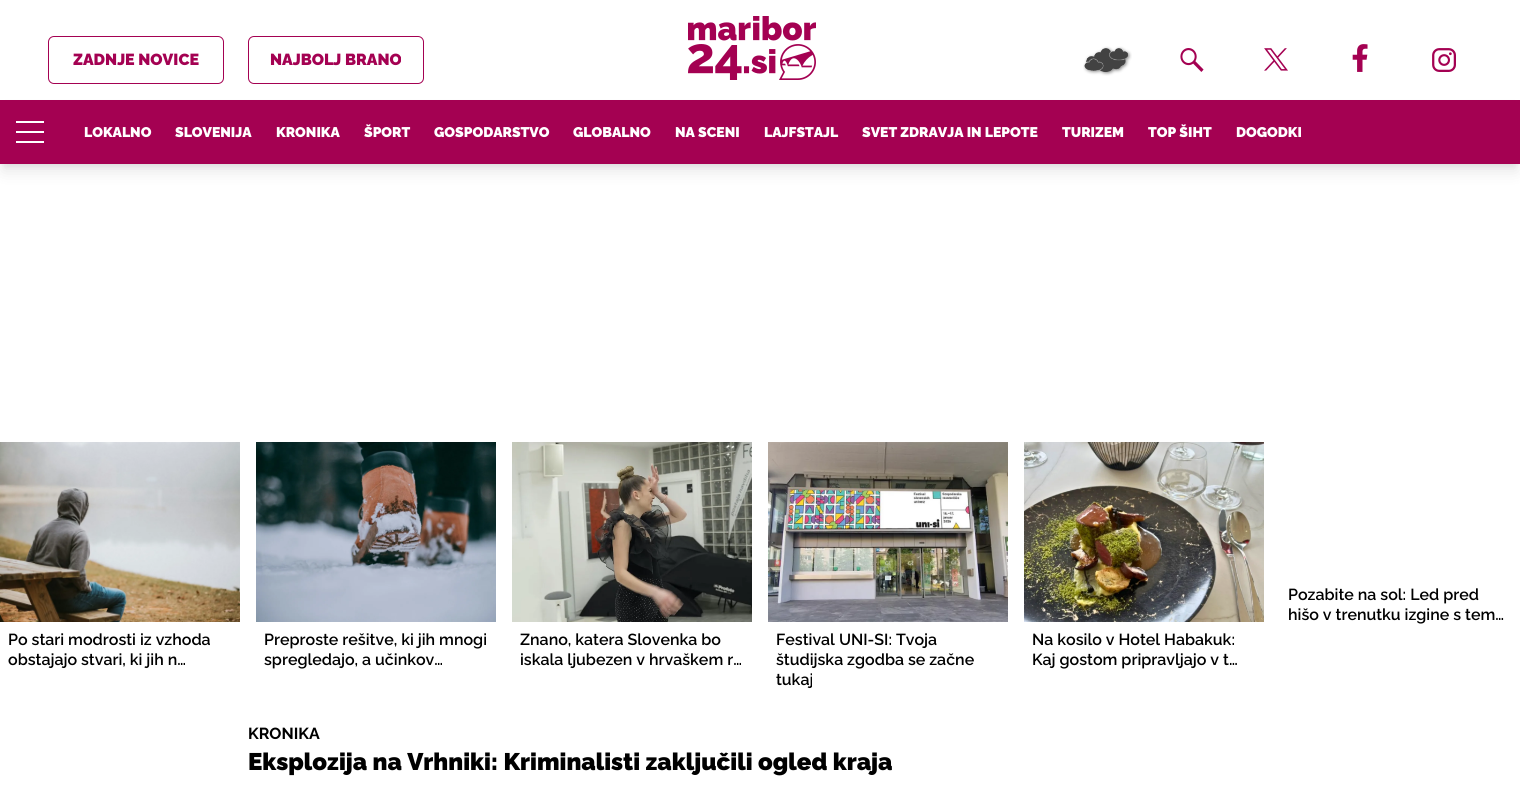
import math
import cairo

surface = cairo.ImageSurface(cairo.FORMAT_RGB24, 1520, 790)
ctx = cairo.Context(surface)
options = cairo.FontOptions()
options.set_hint_metrics(cairo.HINT_METRICS_OFF)
options.set_hint_style(cairo.HINT_STYLE_NONE)
ctx.set_font_options(options)
ctx.set_miter_limit(4)


def round_rect(x, y, w, h, r):
    ctx.new_sub_path()
    for i, (u, v) in enumerate([(x + w - r, y + h - r), (x + r, y + h - r), (x + r, y + r), (x + w - r, y + r)]):
        ctx.arc(u, v, r, i * math.pi / 2, (i + 1) * math.pi / 2)
    ctx.close_path()


def shadow(x, y, w, h, r, blur, alpha):
    ctx.push_group_with_content(cairo.CONTENT_ALPHA)
    ctx.set_operator(cairo.OPERATOR_SOURCE)
    for i in range(15, -16, -2):
        e = blur * i / 6
        if min(w, h) + 2 * e > 0:
            ctx.set_source_rgba(0, 0, 0, alpha * math.erfc((i - 1) / 8.5) / 2)
            round_rect(x - e, y - e, w + 2 * e, h + 2 * e, max(0, min(r + e + blur * .6, min(w, h) / 2 + e)))
            ctx.fill()
    ctx.mask(ctx.pop_group())


def picture(path, x, y, w, h):
    ctx.save()
    ctx.set_source_surface(cairo.ImageSurface.create_from_png(path), x, y)
    ctx.rectangle(x, y, w, h)
    ctx.fill()
    ctx.restore()


ctx.set_source_rgb(1, 1, 1)
ctx.paint()
round_rect(48.5, 36.5, 175, 47, 5.5)
ctx.set_source_rgb(0.643, 0.004, 0.322)
ctx.set_line_width(1)
ctx.stroke()
ctx.select_font_face("Raleway Thin")
ctx.set_font_size(16)
ctx.move_to(73, 65)
ctx.show_text("ZADNJE NOVICE")
round_rect(248.5, 36.5, 175, 47, 5.5)
ctx.stroke()
ctx.move_to(270, 65)
ctx.show_text("NAJBOLJ BRANO")
picture("img1.png", 688, 16, 128, 64)
picture("img2.png", 1083, 46, 49, 30)
picture("img3.png", 1180, 48, 24, 24)
picture("img4.png", 1264, 48, 24, 23)
picture("img5.png", 1352, 44, 16, 28)
picture("img6.png", 1432, 48, 24, 24)
ctx.set_source_rgb(0, 0, 0)
shadow(4, 108, 1512, 56, 0, 3, 0.1)
shadow(3, 113, 1514, 58, 0, 7.5, 0.1)
ctx.set_source_rgb(0.643, 0.004, 0.322)
ctx.rectangle(0, 100, 1520, 64)
ctx.fill()
ctx.set_source_rgb(1, 1, 1)
ctx.rectangle(16, 121, 28, 2)
ctx.fill()
ctx.rectangle(16, 131, 28, 2)
ctx.fill()
ctx.rectangle(16, 141, 28, 2)
ctx.fill()
ctx.set_font_size(14)
ctx.move_to(84, 137)
ctx.show_text("LOKALNO")
ctx.move_to(175, 137)
ctx.show_text("SLOVENIJA")
ctx.move_to(276, 137)
ctx.show_text("KRONIKA")
ctx.move_to(364, 137)
ctx.show_text("ŠPORT")
ctx.move_to(434, 137)
ctx.show_text("GOSPODARSTVO")
ctx.move_to(573, 137)
ctx.show_text("GLOBALNO")
ctx.move_to(675, 137)
ctx.show_text("NA SCENI")
ctx.move_to(764, 137)
ctx.show_text("LAJFSTAJL")
ctx.move_to(862, 137)
ctx.show_text("SVET ZDRAVJA IN LEPOTE")
ctx.move_to(1062, 137)
ctx.show_text("TURIZEM")
ctx.move_to(1148, 137)
ctx.show_text("TOP ŠIHT")
ctx.move_to(1236, 137)
ctx.show_text("DOGODKI")
ctx.select_font_face("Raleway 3 Thin")
ctx.set_font_size(16)
ctx.set_source_rgb(0, 0, 0)
ctx.move_to(1288, 600)
ctx.show_text("Pozabite na sol: Led pred")
ctx.move_to(1288, 620)
ctx.show_text("hišo v trenutku izgine s tem…")
picture("img7.png", 0, 442, 240, 180)
ctx.move_to(8, 645)
ctx.show_text("Po stari modrosti iz vzhoda")
ctx.move_to(8, 665)
ctx.show_text("obstajajo stvari, ki jih n…")
picture("img8.png", 256, 442, 240, 180)
ctx.move_to(264, 645)
ctx.show_text("Preproste rešitve, ki jih mnogi")
ctx.move_to(264, 665)
ctx.show_text("spregledajo, a učinkov…")
picture("img9.png", 512, 442, 240, 180)
ctx.move_to(520, 645)
ctx.show_text("Znano, katera Slovenka bo")
ctx.move_to(520, 665)
ctx.show_text("iskala ljubezen v hrvaškem r…")
picture("img10.png", 768, 442, 240, 180)
ctx.move_to(776, 645)
ctx.show_text("Festival UNI-SI: Tvoja")
ctx.move_to(776, 665)
ctx.show_text("študijska zgodba se začne")
ctx.move_to(776, 685)
ctx.show_text("tukaj")
picture("img11.png", 1024, 442, 240, 180)
ctx.move_to(1032, 645)
ctx.show_text("Na kosilo v Hotel Habakuk:")
ctx.move_to(1032, 665)
ctx.show_text("Kaj gostom pripravljajo v t…")
ctx.select_font_face("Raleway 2 Thin")
ctx.move_to(248, 739)
ctx.show_text("KRONIKA")
ctx.select_font_face("Raleway Thin")
ctx.set_font_size(24)
ctx.move_to(248, 770)
ctx.show_text("Eksplozija na Vrhniki: Kriminalisti zaključili ogled kraja")
surface.write_to_png("page.png")
